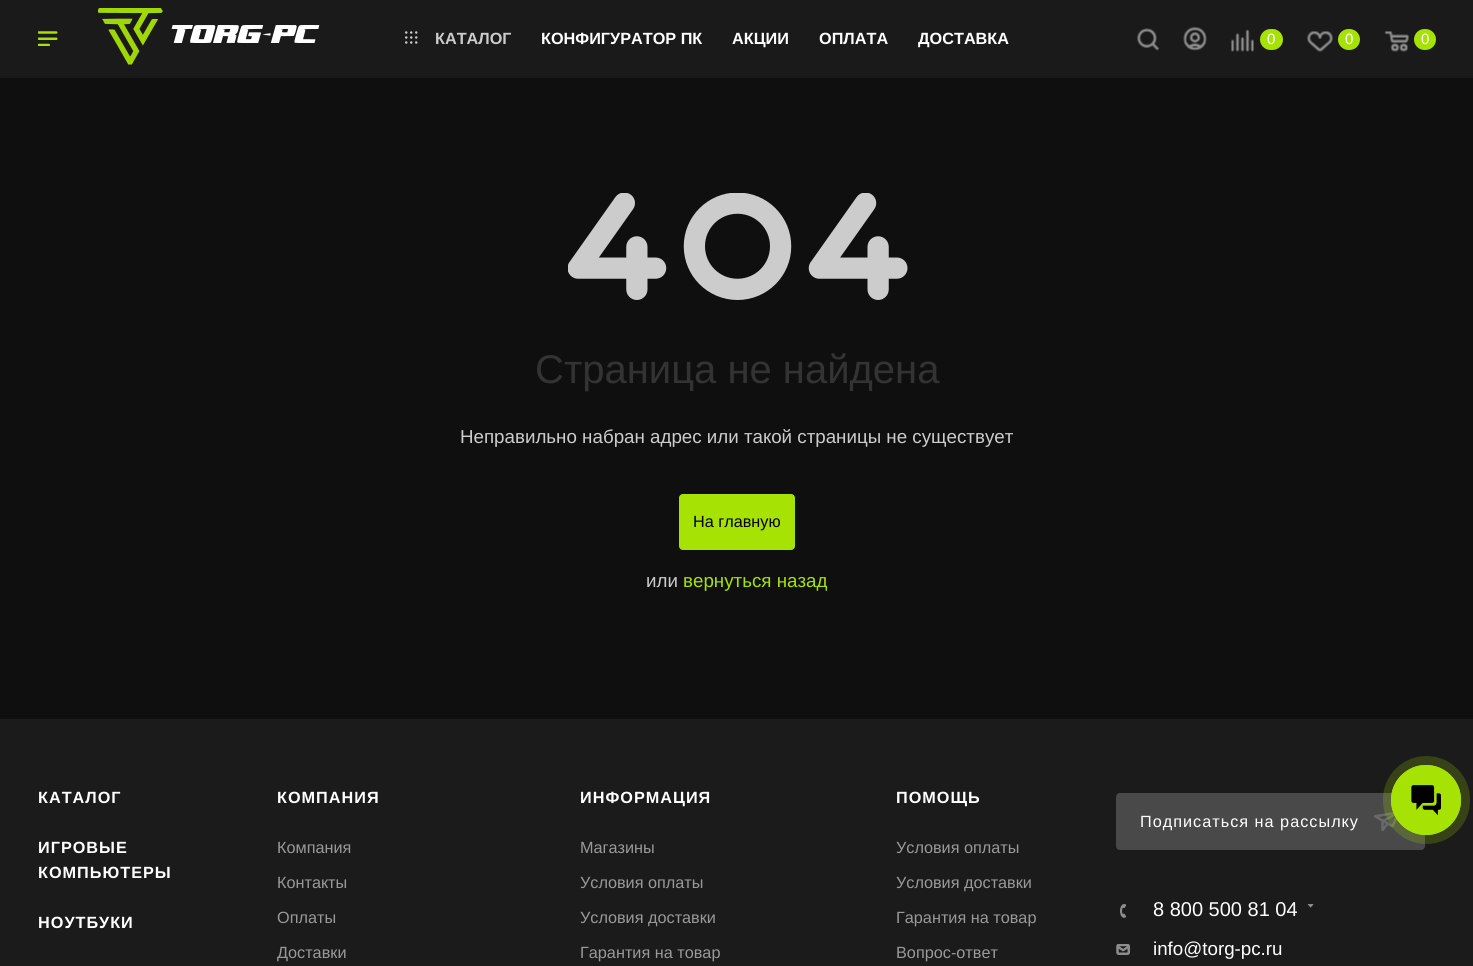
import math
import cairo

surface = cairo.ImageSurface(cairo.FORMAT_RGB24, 1473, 966)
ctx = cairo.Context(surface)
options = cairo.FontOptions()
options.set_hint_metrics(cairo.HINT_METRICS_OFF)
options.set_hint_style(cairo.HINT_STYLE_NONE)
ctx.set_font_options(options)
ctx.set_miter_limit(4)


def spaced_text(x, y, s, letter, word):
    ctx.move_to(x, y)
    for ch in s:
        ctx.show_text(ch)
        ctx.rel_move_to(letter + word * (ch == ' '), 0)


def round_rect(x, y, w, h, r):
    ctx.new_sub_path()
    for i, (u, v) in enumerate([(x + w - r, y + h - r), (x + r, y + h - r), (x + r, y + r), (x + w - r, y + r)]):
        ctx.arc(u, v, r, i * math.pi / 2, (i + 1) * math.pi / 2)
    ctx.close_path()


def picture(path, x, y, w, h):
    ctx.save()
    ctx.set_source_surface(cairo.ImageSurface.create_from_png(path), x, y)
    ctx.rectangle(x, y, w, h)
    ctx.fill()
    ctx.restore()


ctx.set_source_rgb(0.059, 0.059, 0.059)
ctx.paint()
ctx.set_source_rgb(0.102, 0.102, 0.102)
ctx.rectangle(0, 0, 1473, 78)
ctx.fill()
picture("img1.png", 38, 31, 20, 15)
picture("img2.png", 98, 8, 222, 57)
picture("img3.png", 405, 31, 13, 13)
ctx.select_font_face("Liberation Sans", cairo.FONT_SLANT_NORMAL, cairo.FONT_WEIGHT_BOLD)
ctx.set_font_size(16.25)
ctx.set_source_rgb(0.8, 0.8, 0.8)
ctx.move_to(435, 44)
ctx.show_text("КАТАЛОГ")
ctx.set_source_rgb(1, 1, 1)
ctx.move_to(541, 44)
ctx.show_text("КОНФИГУРАТОР ПК")
ctx.move_to(732, 44)
ctx.show_text("АКЦИИ")
ctx.move_to(819, 44)
ctx.show_text("ОПЛАТА")
ctx.move_to(918, 44)
ctx.show_text("ДОСТАВКА")
picture("img4.png", 1137, 28, 22, 23)
picture("img5.png", 1183, 27, 24, 24)
picture("img6.png", 1231, 29, 23, 23)
ctx.set_source_rgb(0.655, 0.886, 0.02)
round_rect(1260, 29, 23, 21, 10.5)
ctx.fill()
ctx.select_font_face("Liberation Sans")
ctx.set_font_size(15)
ctx.set_source_rgb(1, 1, 1)
ctx.move_to(1267, 44)
ctx.show_text("0")
picture("img7.png", 1307, 31, 26, 21)
ctx.set_source_rgb(0.655, 0.886, 0.02)
round_rect(1338, 29, 22, 21, 10.5)
ctx.fill()
ctx.set_source_rgb(1, 1, 1)
ctx.move_to(1345, 44)
ctx.show_text("0")
picture("img8.png", 1384, 31, 25, 21)
ctx.set_source_rgb(0.655, 0.886, 0.02)
round_rect(1414, 29, 22, 21, 10.5)
ctx.fill()
ctx.set_source_rgb(1, 1, 1)
ctx.move_to(1421, 44)
ctx.show_text("0")
picture("img9.png", 568, 193, 340, 107)
ctx.set_font_size(40)
ctx.set_source_rgb(0.2, 0.2, 0.2)
ctx.move_to(535, 383)
ctx.show_text("Страница не найдена")
ctx.set_font_size(18.75)
ctx.set_source_rgb(0.8, 0.8, 0.8)
ctx.move_to(460, 443)
ctx.show_text("Неправильно набран адрес или такой страницы не существует")
ctx.set_source_rgb(0.655, 0.886, 0.02)
round_rect(679.5, 494.5, 115, 55, 3.5)
ctx.fill_preserve()
ctx.set_line_width(1)
ctx.stroke()
ctx.set_font_size(16.25)
ctx.set_source_rgb(0, 0, 0)
ctx.move_to(693, 527)
ctx.show_text("На главную")
ctx.set_font_size(18.75)
ctx.set_source_rgb(0.8, 0.8, 0.8)
ctx.move_to(646, 587)
ctx.show_text("или")
ctx.set_source_rgb(0.655, 0.886, 0.02)
ctx.move_to(683, 587)
ctx.show_text("вернуться назад")
ctx.set_source_rgb(0.106, 0.106, 0.106)
ctx.rectangle(0, 719, 1473, 247)
ctx.fill()
ctx.select_font_face("Liberation Sans", cairo.FONT_SLANT_NORMAL, cairo.FONT_WEIGHT_BOLD)
ctx.set_font_size(16.25)
ctx.set_source_rgb(1, 1, 1)
spaced_text(38, 803, "КАТАЛОГ", 1, 0)
spaced_text(38, 853, "ИГРОВЫЕ", 1, 0)
spaced_text(38, 878, "КОМПЬЮТЕРЫ", 1, 0)
spaced_text(38, 928, "НОУТБУКИ", 1, 0)
spaced_text(277, 803, "КОМПАНИЯ", 1, 0)
ctx.select_font_face("Liberation Sans")
ctx.set_source_rgb(0.6, 0.6, 0.6)
ctx.move_to(277, 853)
ctx.show_text("Компания")
ctx.move_to(277, 888)
ctx.show_text("Контакты")
ctx.move_to(277, 923)
ctx.show_text("Оплаты")
ctx.move_to(277, 958)
ctx.show_text("Доставки")
ctx.select_font_face("Liberation Sans", cairo.FONT_SLANT_NORMAL, cairo.FONT_WEIGHT_BOLD)
ctx.set_source_rgb(1, 1, 1)
spaced_text(580, 803, "ИНФОРМАЦИЯ", 1, 0)
ctx.select_font_face("Liberation Sans")
ctx.set_source_rgb(0.6, 0.6, 0.6)
ctx.move_to(580, 853)
ctx.show_text("Магазины")
ctx.move_to(580, 888)
ctx.show_text("Условия оплаты")
ctx.move_to(580, 923)
ctx.show_text("Условия доставки")
ctx.move_to(580, 958)
ctx.show_text("Гарантия на товар")
ctx.select_font_face("Liberation Sans", cairo.FONT_SLANT_NORMAL, cairo.FONT_WEIGHT_BOLD)
ctx.set_source_rgb(1, 1, 1)
spaced_text(896, 803, "ПОМОЩЬ", 1, 0)
ctx.select_font_face("Liberation Sans")
ctx.set_source_rgb(0.6, 0.6, 0.6)
ctx.move_to(896, 853)
ctx.show_text("Условия оплаты")
ctx.move_to(896, 888)
ctx.show_text("Условия доставки")
ctx.move_to(896, 923)
ctx.show_text("Гарантия на товар")
ctx.move_to(896, 958)
ctx.show_text("Вопрос-ответ")
ctx.set_source_rgb(0.286, 0.286, 0.286)
round_rect(1116.5, 793.5, 308, 56, 3.5)
ctx.fill_preserve()
ctx.stroke()
ctx.set_source_rgb(1, 1, 1)
spaced_text(1140, 827, "Подписаться на рассылку", 1, 0)
picture("img10.png", 1374, 812, 23, 19)
picture("img11.png", 1120, 904, 6, 14)
ctx.set_font_size(20)
ctx.move_to(1153, 916)
ctx.show_text("8 800 500 81 04")
picture("img12.png", 1307, 904, 7, 4)
picture("img13.png", 1116, 944, 14, 11)
ctx.set_font_size(18.75)
ctx.move_to(1153, 955)
ctx.show_text("info@torg-pc.ru")
ctx.set_source_rgba(0.655, 0.886, 0.02, 0.2)
round_rect(1383, 756, 87, 88, 43.5)
ctx.fill()
ctx.arc(1426, 800, 34.5, 0, 2 * math.pi)
ctx.set_source_rgb(0.655, 0.886, 0.02)
ctx.stroke()
ctx.arc(1426, 800, 35, 0, 2 * math.pi)
ctx.fill()
picture("img14.png", 1411, 785, 30, 30)
surface.write_to_png("page.png")
